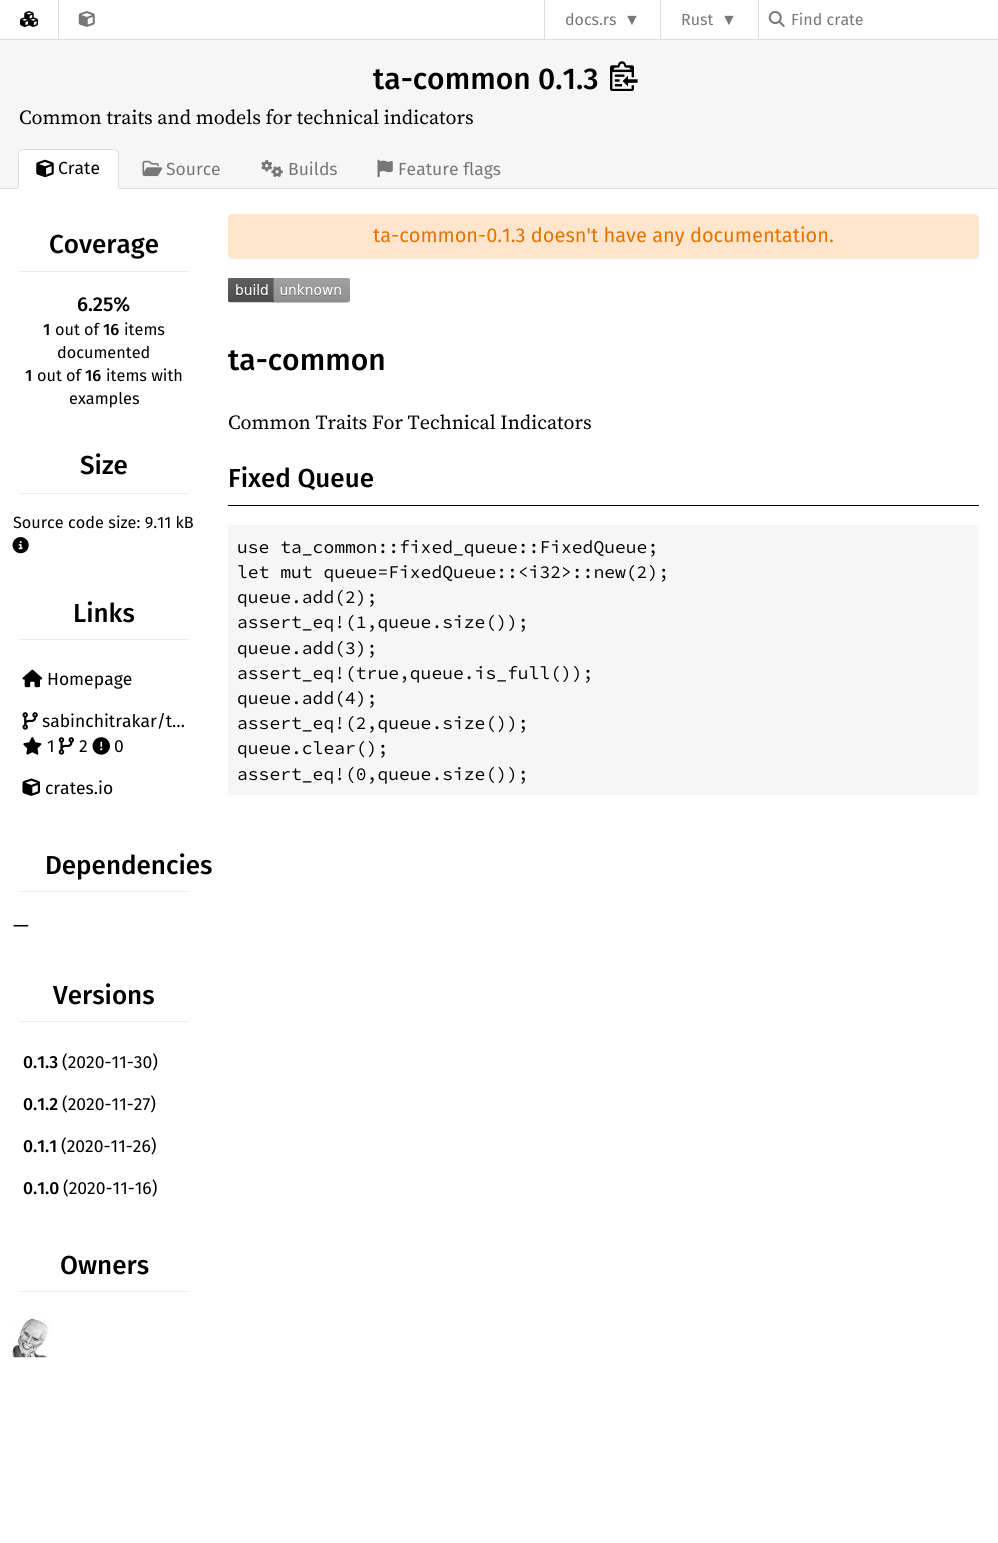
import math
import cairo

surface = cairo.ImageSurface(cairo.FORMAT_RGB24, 998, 1543)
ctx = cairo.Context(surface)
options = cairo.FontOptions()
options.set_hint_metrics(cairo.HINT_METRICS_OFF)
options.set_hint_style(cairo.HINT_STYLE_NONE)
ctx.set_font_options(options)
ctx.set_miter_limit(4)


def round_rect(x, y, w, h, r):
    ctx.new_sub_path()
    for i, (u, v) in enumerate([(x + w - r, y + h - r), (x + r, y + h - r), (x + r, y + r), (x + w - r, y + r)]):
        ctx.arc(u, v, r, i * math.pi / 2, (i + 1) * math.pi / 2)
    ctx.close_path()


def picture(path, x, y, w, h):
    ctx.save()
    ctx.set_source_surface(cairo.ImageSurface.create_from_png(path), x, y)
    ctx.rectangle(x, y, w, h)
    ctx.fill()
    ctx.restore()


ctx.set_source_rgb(1, 1, 1)
ctx.paint()
ctx.set_source_rgb(0.867, 0.867, 0.867)
ctx.rectangle(0, 39, 998, 1)
ctx.fill()
picture("img1.png", 20, 11, 18, 16)
ctx.rectangle(58, 0, 1, 39)
ctx.fill()
picture("img2.png", 78, 11, 17, 16)
ctx.rectangle(544, 0, 1, 39)
ctx.fill()
ctx.select_font_face("Fira Sans")
ctx.set_font_size(16)
ctx.set_source_rgb(0.467, 0.467, 0.467)
ctx.move_to(565, 25)
ctx.show_text("docs.rs")
ctx.select_font_face("Liberation Sans")
ctx.move_to(624, 25)
ctx.show_text("▼")
ctx.set_source_rgb(0.867, 0.867, 0.867)
ctx.rectangle(660, 0, 1, 39)
ctx.fill()
ctx.select_font_face("Fira Sans")
ctx.set_source_rgb(0.467, 0.467, 0.467)
ctx.move_to(681, 25)
ctx.show_text("Rust")
ctx.select_font_face("Liberation Sans")
ctx.move_to(721, 25)
ctx.show_text("▼")
ctx.set_source_rgb(0.867, 0.867, 0.867)
ctx.rectangle(758, 0, 1, 39)
ctx.fill()
picture("img3.png", 768, 11, 17, 16)
ctx.select_font_face("Fira Sans")
ctx.set_source_rgb(0.467, 0.467, 0.467)
ctx.move_to(791, 25)
ctx.show_text("Find crate")
ctx.set_source_rgb(0.961, 0.961, 0.961)
ctx.rectangle(0, 40, 998, 148)
ctx.fill()
ctx.set_source_rgb(0.867, 0.867, 0.867)
ctx.rectangle(0, 188, 998, 1)
ctx.fill()
ctx.select_font_face("Fira Sans Medium")
ctx.set_font_size(30)
ctx.set_source_rgb(0, 0, 0)
ctx.move_to(373, 89)
ctx.show_text("ta-common 0.1.3")
picture("img4.png", 610, 61, 28, 30)
ctx.select_font_face("Source Serif 4")
ctx.set_font_size(20)
ctx.move_to(19, 124)
ctx.show_text("Common traits and models for technical indicators")
ctx.set_source_rgb(1, 1, 1)
ctx.new_path()
ctx.move_to(23, 150)
ctx.line_to(114, 150)
ctx.curve_to(116, 150, 118, 152, 118, 154)
ctx.line_to(118, 186)
ctx.line_to(19, 186)
ctx.line_to(19, 154)
ctx.curve_to(19, 152, 21, 150, 23, 150)
ctx.close_path()
ctx.fill()
ctx.set_source_rgb(0.867, 0.867, 0.867)
ctx.new_path()
ctx.move_to(22, 149)
ctx.curve_to(21, 149, 20, 150, 19, 150)
ctx.line_to(20, 151)
ctx.curve_to(20, 150, 21, 150, 22, 150)
ctx.line_to(114, 150)
ctx.line_to(116, 151)
ctx.line_to(117, 150)
ctx.line_to(114, 149)
ctx.close_path()
ctx.fill()
ctx.new_path()
ctx.move_to(117.5, 150)
ctx.line_to(119, 152.5)
ctx.line_to(119, 189)
ctx.line_to(117.5, 186)
ctx.line_to(118, 186)
ctx.line_to(118, 154)
ctx.curve_to(118, 153, 117.5, 152, 116.5, 151)
ctx.close_path()
ctx.fill()
ctx.set_source_rgb(1, 1, 1)
ctx.new_path()
ctx.move_to(119, 189)
ctx.line_to(18, 189)
ctx.line_to(19, 186)
ctx.line_to(117, 186)
ctx.close_path()
ctx.fill()
ctx.set_source_rgb(0.867, 0.867, 0.867)
ctx.new_path()
ctx.move_to(19, 150.5)
ctx.curve_to(18.5, 151.5, 18, 152.5, 18, 154)
ctx.line_to(18, 188)
ctx.line_to(19, 186)
ctx.line_to(19, 154)
ctx.curve_to(19, 153, 19.5, 152, 20, 151)
ctx.close_path()
ctx.fill()
picture("img5.png", 36, 159, 18, 19)
ctx.select_font_face("Fira Sans")
ctx.set_font_size(17.5)
ctx.set_source_rgb(0, 0, 0)
ctx.move_to(58, 174)
ctx.show_text("Crate")
picture("img6.png", 142, 160, 21, 17)
ctx.set_source_rgb(0.467, 0.467, 0.467)
ctx.move_to(166, 175)
ctx.show_text("Source")
picture("img7.png", 261, 160, 22, 17)
ctx.move_to(288, 175)
ctx.show_text("Builds")
picture("img8.png", 377, 159, 16, 19)
ctx.move_to(398, 175)
ctx.show_text("Feature flags")
ctx.set_source_rgb(0.918, 0.918, 0.918)
ctx.rectangle(19, 271, 170, 1)
ctx.fill()
ctx.select_font_face("Fira Sans Medium")
ctx.set_font_size(26)
ctx.set_source_rgb(0, 0, 0)
ctx.move_to(49, 253)
ctx.show_text("Coverage")
ctx.set_font_size(20)
ctx.move_to(77, 311)
ctx.show_text("6.25%")
ctx.set_font_size(16.25)
ctx.move_to(43, 335)
ctx.show_text("1")
ctx.select_font_face("Fira Sans")
ctx.move_to(55, 335)
ctx.show_text("out of")
ctx.select_font_face("Fira Sans Medium")
ctx.move_to(103, 335)
ctx.show_text("16")
ctx.select_font_face("Fira Sans")
ctx.move_to(124, 335)
ctx.show_text("items")
ctx.move_to(57, 358)
ctx.show_text("documented")
ctx.select_font_face("Fira Sans Medium")
ctx.move_to(25, 381)
ctx.show_text("1")
ctx.select_font_face("Fira Sans")
ctx.move_to(37, 381)
ctx.show_text("out of")
ctx.select_font_face("Fira Sans Medium")
ctx.move_to(85, 381)
ctx.show_text("16")
ctx.select_font_face("Fira Sans")
ctx.move_to(106, 381)
ctx.show_text("items with")
ctx.move_to(69, 404)
ctx.show_text("examples")
ctx.set_source_rgb(0.918, 0.918, 0.918)
ctx.rectangle(19, 493, 170, 1)
ctx.fill()
ctx.select_font_face("Fira Sans Medium")
ctx.set_font_size(26)
ctx.set_source_rgb(0, 0, 0)
ctx.move_to(80, 474)
ctx.show_text("Size")
ctx.select_font_face("Fira Sans")
ctx.set_font_size(16.25)
ctx.move_to(13, 528)
ctx.show_text("Source code size: 9.11 kB")
picture("img9.png", 12, 537, 17, 17)
ctx.set_source_rgb(0.918, 0.918, 0.918)
ctx.rectangle(19, 639, 170, 1)
ctx.fill()
ctx.select_font_face("Fira Sans Medium")
ctx.set_font_size(26)
ctx.set_source_rgb(0, 0, 0)
ctx.move_to(73, 622)
ctx.show_text("Links")
picture("img10.png", 22, 669, 21, 19)
ctx.select_font_face("Fira Sans")
ctx.set_font_size(17.5)
ctx.move_to(47, 685)
ctx.show_text("Homepage")
picture("img11.png", 22, 712, 16, 18)
ctx.move_to(42, 727)
ctx.show_text("sabinchitrakar/t…")
picture("img12.png", 23, 737, 19, 18)
ctx.move_to(47, 752)
ctx.show_text("1")
picture("img13.png", 58, 737, 16, 18)
ctx.move_to(79, 752)
ctx.show_text("2")
picture("img14.png", 92, 737, 18, 18)
ctx.move_to(114, 752)
ctx.show_text("0")
picture("img15.png", 22, 778, 18, 18)
ctx.move_to(45, 794)
ctx.show_text("crates.io")
ctx.set_source_rgb(0.918, 0.918, 0.918)
ctx.rectangle(19, 891, 170, 1)
ctx.fill()
ctx.select_font_face("Fira Sans Medium")
ctx.set_font_size(26)
ctx.set_source_rgb(0, 0, 0)
ctx.move_to(45, 874)
ctx.show_text("Dependencies")
ctx.select_font_face("Fira Sans")
ctx.set_font_size(20)
ctx.move_to(13, 932)
ctx.show_text("—")
ctx.set_source_rgb(0.918, 0.918, 0.918)
ctx.rectangle(19, 1021, 170, 1)
ctx.fill()
ctx.select_font_face("Fira Sans Medium")
ctx.set_font_size(26)
ctx.set_source_rgb(0, 0, 0)
ctx.move_to(53, 1004)
ctx.show_text("Versions")
ctx.set_font_size(17.5)
ctx.move_to(23, 1068)
ctx.show_text("0.1.3")
ctx.select_font_face("Fira Sans")
ctx.move_to(62, 1068)
ctx.show_text("(2020-11-30)")
ctx.select_font_face("Fira Sans Medium")
ctx.move_to(23, 1110)
ctx.show_text("0.1.2")
ctx.select_font_face("Fira Sans")
ctx.move_to(62, 1110)
ctx.show_text("(2020-11-27)")
ctx.select_font_face("Fira Sans Medium")
ctx.move_to(23, 1152)
ctx.show_text("0.1.1")
ctx.select_font_face("Fira Sans")
ctx.move_to(61, 1152)
ctx.show_text("(2020-11-26)")
ctx.select_font_face("Fira Sans Medium")
ctx.move_to(23, 1194)
ctx.show_text("0.1.0")
ctx.select_font_face("Fira Sans")
ctx.move_to(63, 1194)
ctx.show_text("(2020-11-16)")
ctx.set_source_rgb(0.918, 0.918, 0.918)
ctx.rectangle(19, 1291, 170, 1)
ctx.fill()
ctx.select_font_face("Fira Sans Medium")
ctx.set_font_size(26)
ctx.set_source_rgb(0, 0, 0)
ctx.move_to(60, 1274)
ctx.show_text("Owners")
picture("img16.png", 12, 1318, 39, 40)
ctx.set_source_rgb(1, 0.898, 0.8)
round_rect(228, 214, 751, 45, 5)
ctx.fill()
ctx.select_font_face("Fira Sans")
ctx.set_font_size(20)
ctx.set_source_rgb(0.898, 0.451, 0)
ctx.move_to(373, 242)
ctx.show_text("ta-common-0.1.3 doesn't have any documentation.")
picture("img17.png", 228, 278, 122, 25)
ctx.select_font_face("Fira Sans Medium")
ctx.set_font_size(30)
ctx.set_source_rgb(0, 0, 0)
ctx.move_to(228, 370)
ctx.show_text("ta-common")
ctx.select_font_face("Source Serif 4")
ctx.set_font_size(20)
ctx.move_to(228, 429)
ctx.show_text("Common Traits For Technical Indicators")
ctx.rectangle(228, 505, 751, 1)
ctx.fill()
ctx.select_font_face("Fira Sans Medium")
ctx.set_font_size(26)
ctx.move_to(228, 487)
ctx.show_text("Fixed Queue")
ctx.set_source_rgb(0.961, 0.961, 0.961)
ctx.rectangle(228, 525, 751, 270)
ctx.fill()
ctx.select_font_face("Source Code Pro")
ctx.set_font_size(18)
ctx.set_source_rgb(0, 0, 0)
ctx.move_to(237, 553)
ctx.show_text("use ta_common::fixed_queue::FixedQueue;")
ctx.move_to(237, 578)
ctx.show_text("let mut queue=FixedQueue::<i32>::new(2);")
ctx.move_to(237, 603)
ctx.show_text("queue.add(2);")
ctx.move_to(237, 628)
ctx.show_text("assert_eq!(1,queue.size());")
ctx.move_to(237, 654)
ctx.show_text("queue.add(3);")
ctx.move_to(237, 679)
ctx.show_text("assert_eq!(true,queue.is_full());")
ctx.move_to(237, 704)
ctx.show_text("queue.add(4);")
ctx.move_to(237, 729)
ctx.show_text("assert_eq!(2,queue.size());")
ctx.move_to(237, 754)
ctx.show_text("queue.clear();")
ctx.move_to(237, 780)
ctx.show_text("assert_eq!(0,queue.size());")
surface.write_to_png("page.png")
